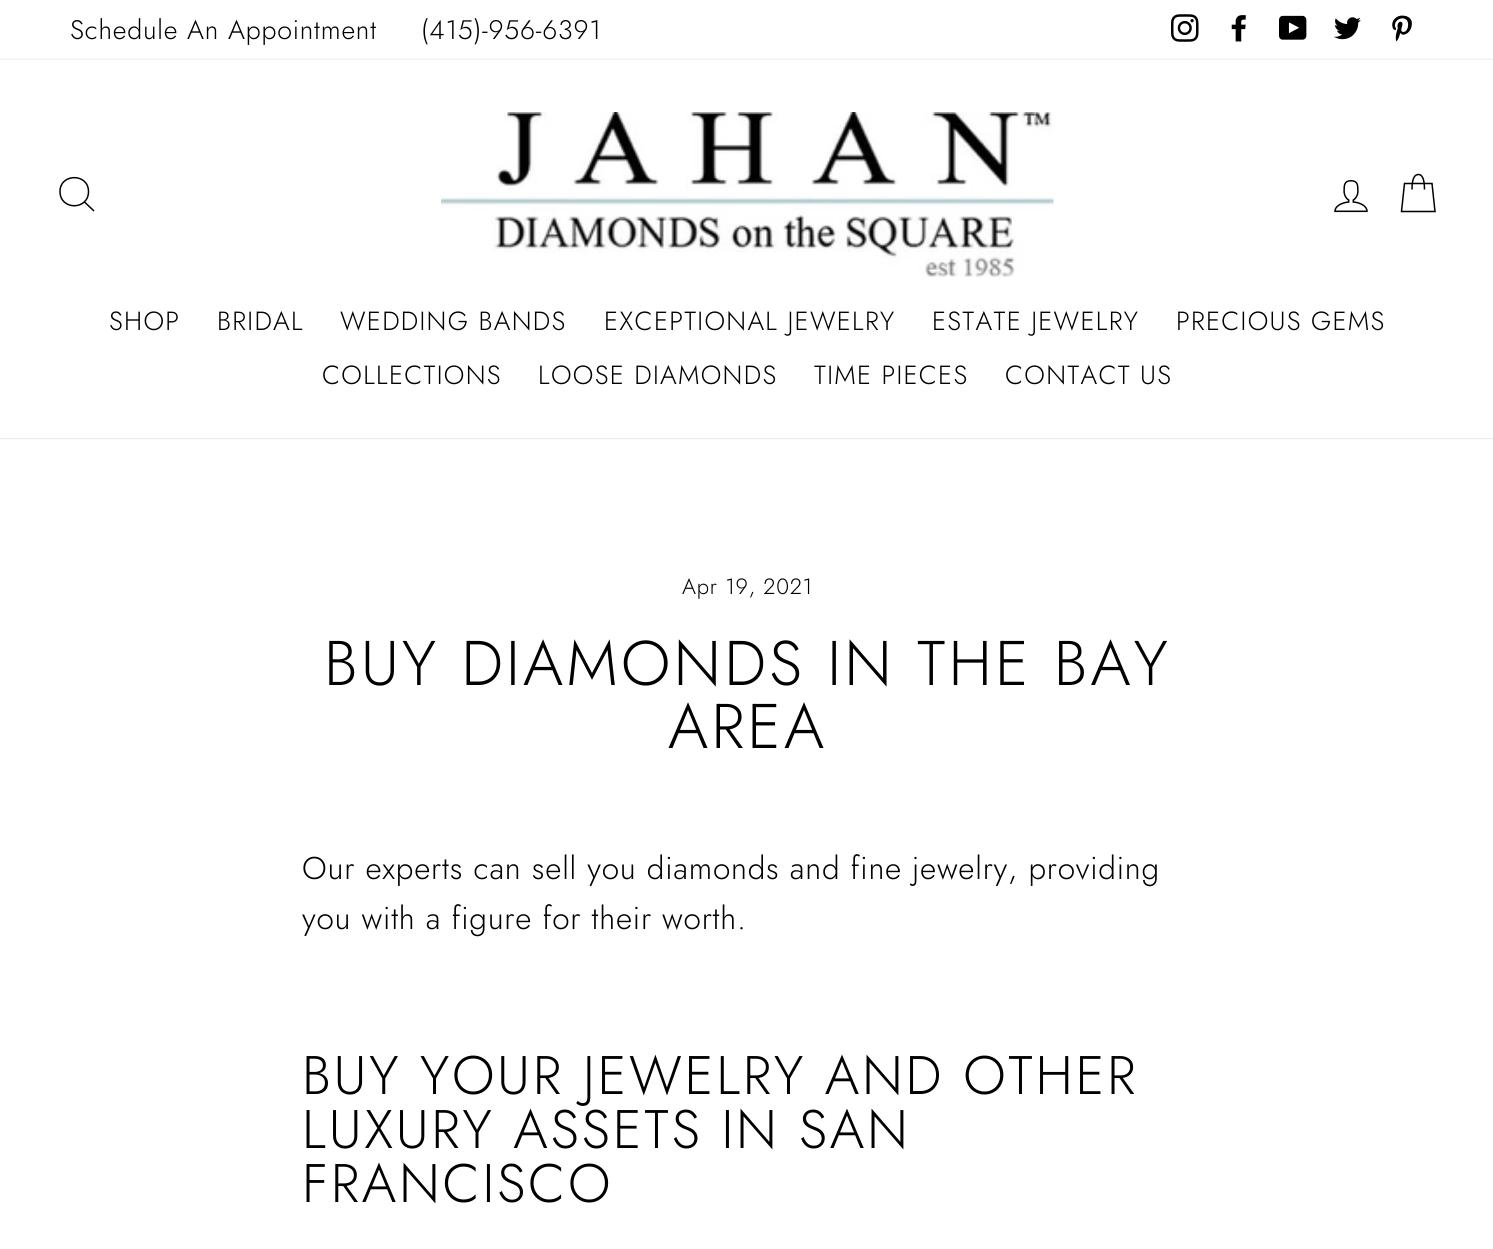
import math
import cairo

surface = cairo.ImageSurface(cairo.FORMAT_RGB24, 1493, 1249)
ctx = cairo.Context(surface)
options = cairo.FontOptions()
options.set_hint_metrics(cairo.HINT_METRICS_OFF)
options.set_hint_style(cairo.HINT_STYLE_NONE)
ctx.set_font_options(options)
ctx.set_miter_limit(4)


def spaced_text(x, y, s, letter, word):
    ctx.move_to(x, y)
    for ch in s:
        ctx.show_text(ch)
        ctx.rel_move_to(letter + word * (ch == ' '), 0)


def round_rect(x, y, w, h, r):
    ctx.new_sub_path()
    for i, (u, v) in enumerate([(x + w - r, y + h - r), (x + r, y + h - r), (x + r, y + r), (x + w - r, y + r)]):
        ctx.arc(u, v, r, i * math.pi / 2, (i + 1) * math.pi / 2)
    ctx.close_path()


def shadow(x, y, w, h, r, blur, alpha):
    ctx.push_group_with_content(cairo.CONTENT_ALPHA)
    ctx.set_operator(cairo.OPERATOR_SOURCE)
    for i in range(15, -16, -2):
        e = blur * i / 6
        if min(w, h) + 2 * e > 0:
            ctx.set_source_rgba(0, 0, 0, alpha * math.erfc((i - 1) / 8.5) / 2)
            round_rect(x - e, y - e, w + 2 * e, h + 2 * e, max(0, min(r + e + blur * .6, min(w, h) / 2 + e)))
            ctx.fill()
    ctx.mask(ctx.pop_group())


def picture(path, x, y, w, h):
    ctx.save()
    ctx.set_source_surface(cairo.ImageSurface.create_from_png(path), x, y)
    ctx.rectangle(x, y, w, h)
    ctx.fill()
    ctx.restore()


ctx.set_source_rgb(1, 1, 1)
ctx.paint()
ctx.select_font_face("Jost Light")
ctx.set_font_size(26.75)
ctx.set_source_rgb(0, 0, 0)
spaced_text(70, 39, "Schedule An Appointment", 0.8, 0)
spaced_text(421, 39, "(415)-956-6391", 0.8, 0)
picture("img1.png", 1171, 14, 28, 28)
picture("img2.png", 1231, 15, 15, 27)
picture("img3.png", 1279, 15, 28, 25)
picture("img4.png", 1334, 17, 27, 23)
picture("img5.png", 1392, 15, 20, 27)
ctx.set_source_rgb(0, 0, 0)
shadow(0, 60, 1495, 378, 0, 1, 0.2)
ctx.set_source_rgb(1, 1, 1)
ctx.rectangle(0, 60, 1493, 378)
ctx.fill()
ctx.new_path()
ctx.move_to(88.5, 191.5)
ctx.curve_to(88.5, 210.5, 60, 210.5, 60, 191.5)
ctx.curve_to(60, 173, 88.5, 173, 88.5, 191.5)
ctx.close_path()
ctx.move_to(94, 211)
ctx.line_to(84.5, 202)
ctx.set_source_rgb(0, 0, 0)
ctx.set_line_width(1.5)
ctx.stroke()
picture("img6.png", 441, 112, 613, 165)
picture("img7.png", 1334, 180, 34, 33)
ctx.new_path()
ctx.move_to(1412, 189.5)
ctx.curve_to(1412, 177.5, 1415, 174.5, 1418.5, 174.5)
ctx.curve_to(1421.5, 174.5, 1424.5, 177.5, 1424.5, 189.5)
ctx.move_to(1404.5, 183.5)
ctx.line_to(1432, 183.5)
ctx.line_to(1435, 211.5)
ctx.line_to(1401.5, 211.5)
ctx.close_path()
ctx.stroke()
ctx.set_font_size(26.25)
spaced_text(109, 330, "SHOP", 1.3, 0)
spaced_text(217, 330, "BRIDAL", 1.3, 0)
spaced_text(340, 330, "WEDDING BANDS", 1.3, 0)
spaced_text(604, 330, "EXCEPTIONAL JEWELRY", 1.3, 0)
spaced_text(932, 330, "ESTATE JEWELRY", 1.3, 0)
spaced_text(1176, 330, "PRECIOUS GEMS", 1.3, 0)
spaced_text(322, 384, "COLLECTIONS", 1.3, 0)
spaced_text(538, 384, "LOOSE DIAMONDS", 1.3, 0)
spaced_text(814, 384, "TIME PIECES", 1.3, 0)
spaced_text(1005, 384, "CONTACT US", 1.3, 0)
ctx.set_font_size(22)
spaced_text(682, 594, "Apr 19, 2021", 0.8, 0)
ctx.set_font_size(63)
spaced_text(324, 685, "BUY DIAMONDS IN THE BAY", 3.15, 0)
spaced_text(668, 748, "AREA", 3.15, 0)
ctx.set_font_size(31.5)
spaced_text(302, 879, "Our experts can sell you diamonds and fine jewelry, providing", 0.8, 0)
spaced_text(302, 929, "you with a figure for their worth.", 0.8, 0)
ctx.set_font_size(54.2)
spaced_text(302, 1094, "BUY YOUR JEWELRY AND OTHER", 2.7, 0)
spaced_text(302, 1148, "LUXURY ASSETS IN SAN", 2.7, 0)
spaced_text(302, 1202, "FRANCISCO", 2.7, 0)
surface.write_to_png("page.png")
